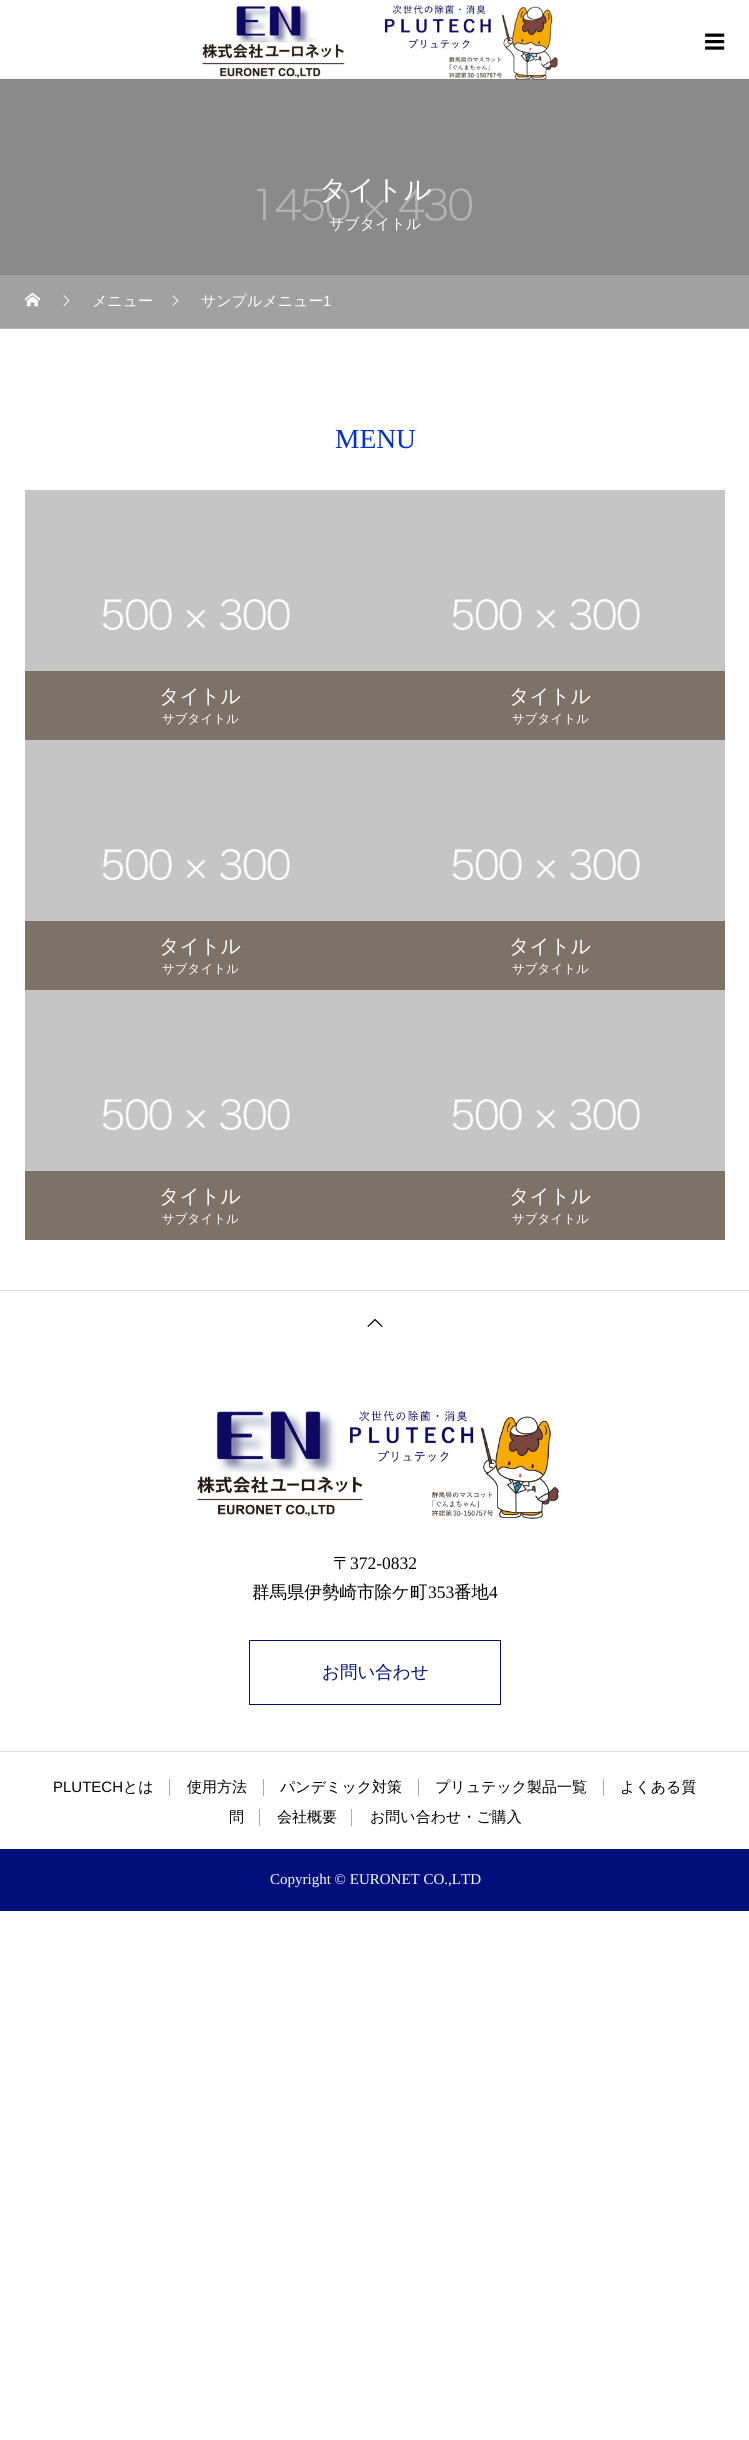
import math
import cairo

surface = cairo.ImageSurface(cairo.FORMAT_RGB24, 749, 2440)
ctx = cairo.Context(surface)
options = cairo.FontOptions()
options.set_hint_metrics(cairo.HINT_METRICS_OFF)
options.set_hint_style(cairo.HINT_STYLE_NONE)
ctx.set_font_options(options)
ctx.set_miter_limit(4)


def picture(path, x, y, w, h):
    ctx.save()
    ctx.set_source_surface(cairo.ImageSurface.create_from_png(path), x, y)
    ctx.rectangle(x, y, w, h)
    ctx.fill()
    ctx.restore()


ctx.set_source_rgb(1, 1, 1)
ctx.paint()
picture("img3.png", 0, 79, 749, 250)
picture("img1.png", 202, 5, 356, 75)
picture("img2.png", 705, 33, 20, 17)
ctx.select_font_face("WenQuanYi Zen Hei Medium")
ctx.set_font_size(27.5)
ctx.set_source_rgb(1, 1, 1)
ctx.move_to(319, 199)
ctx.show_text("タイトル")
ctx.set_font_size(15)
ctx.move_to(329, 229)
ctx.show_text("サブタイトル")
ctx.set_source_rgba(1, 1, 1, 0.2)
ctx.rectangle(0, 275, 749, 54)
ctx.fill()
picture("img4.png", 25, 292, 15, 15)
picture("img5.png", 63, 295, 7, 11)
ctx.set_source_rgb(1, 1, 1)
ctx.move_to(92, 306)
ctx.show_text("メニュー")
picture("img6.png", 172, 295, 7, 11)
ctx.move_to(201, 306)
ctx.show_text("サンプルメニュー")
ctx.select_font_face("Liberation Sans")
ctx.move_to(323, 306)
ctx.show_text("1")
ctx.select_font_face("Liberation Serif")
ctx.set_font_size(27.5)
ctx.set_source_rgb(0, 0.188, 0.808)
ctx.move_to(335, 448)
ctx.show_text("MENU")
picture("img7.png", 25, 490, 350, 181)
ctx.set_source_rgb(0.49, 0.447, 0.404)
ctx.rectangle(25, 671, 700, 69)
ctx.fill()
ctx.select_font_face("WenQuanYi Zen Hei Medium")
ctx.set_font_size(20)
ctx.set_source_rgb(1, 1, 1)
ctx.move_to(159, 703)
ctx.show_text("タイトル")
ctx.set_font_size(12.5)
ctx.move_to(162, 723)
ctx.show_text("サブタイトル")
picture("img7.png", 375, 490, 350, 181)
ctx.set_font_size(20)
ctx.move_to(509, 703)
ctx.show_text("タイトル")
ctx.set_font_size(12.5)
ctx.move_to(512, 723)
ctx.show_text("サブタイトル")
picture("img8.png", 25, 740, 350, 181)
ctx.set_source_rgb(0.49, 0.447, 0.404)
ctx.rectangle(25, 921, 700, 69)
ctx.fill()
ctx.set_font_size(20)
ctx.set_source_rgb(1, 1, 1)
ctx.move_to(159, 953)
ctx.show_text("タイトル")
ctx.set_font_size(12.5)
ctx.move_to(162, 973)
ctx.show_text("サブタイトル")
picture("img8.png", 375, 740, 350, 181)
ctx.set_font_size(20)
ctx.move_to(509, 953)
ctx.show_text("タイトル")
ctx.set_font_size(12.5)
ctx.move_to(512, 973)
ctx.show_text("サブタイトル")
picture("img9.png", 25, 990, 350, 181)
ctx.set_source_rgb(0.49, 0.447, 0.404)
ctx.rectangle(25, 1171, 700, 69)
ctx.fill()
ctx.set_font_size(20)
ctx.set_source_rgb(1, 1, 1)
ctx.move_to(159, 1203)
ctx.show_text("タイトル")
ctx.set_font_size(12.5)
ctx.move_to(162, 1223)
ctx.show_text("サブタイトル")
picture("img9.png", 375, 990, 350, 181)
ctx.set_font_size(20)
ctx.move_to(509, 1203)
ctx.show_text("タイトル")
ctx.set_font_size(12.5)
ctx.move_to(512, 1223)
ctx.show_text("サブタイトル")
ctx.set_source_rgb(0.867, 0.867, 0.867)
ctx.rectangle(0, 1290, 749, 1)
ctx.fill()
picture("img10.png", 367, 1319, 16, 8)
picture("img11.png", 197, 1410, 362, 109)
ctx.set_font_size(17.5)
ctx.set_source_rgb(0, 0, 0)
ctx.move_to(333, 1569)
ctx.show_text("〒")
ctx.select_font_face("Liberation Serif")
ctx.move_to(350, 1569)
ctx.show_text("372-0832")
ctx.select_font_face("WenQuanYi Zen Hei Medium")
ctx.move_to(252, 1598)
ctx.show_text("群馬県伊勢崎市除ケ町")
ctx.select_font_face("Liberation Serif")
ctx.move_to(428, 1598)
ctx.show_text("353")
ctx.select_font_face("WenQuanYi Zen Hei Medium")
ctx.move_to(454, 1598)
ctx.show_text("番地")
ctx.select_font_face("Liberation Serif")
ctx.move_to(489, 1598)
ctx.show_text("4")
ctx.rectangle(249.5, 1640.5, 251, 64)
ctx.set_source_rgb(0.004, 0.059, 0.486)
ctx.set_line_width(1)
ctx.stroke()
ctx.select_font_face("WenQuanYi Zen Hei Medium")
ctx.move_to(322, 1678)
ctx.show_text("お問い合わせ")
ctx.set_source_rgb(0.867, 0.867, 0.867)
ctx.rectangle(0, 1751, 749, 1)
ctx.fill()
ctx.select_font_face("Liberation Sans")
ctx.set_font_size(15)
ctx.set_source_rgb(0, 0, 0)
ctx.move_to(53, 1792)
ctx.show_text("PLUTECH")
ctx.select_font_face("WenQuanYi Zen Hei Medium")
ctx.move_to(123, 1792)
ctx.show_text("とは")
ctx.set_source_rgb(0.667, 0.667, 0.667)
ctx.rectangle(169, 1779, 1, 17)
ctx.fill()
ctx.set_source_rgb(0, 0, 0)
ctx.move_to(187, 1792)
ctx.show_text("使用方法")
ctx.set_source_rgb(0.667, 0.667, 0.667)
ctx.rectangle(263, 1779, 1, 17)
ctx.fill()
ctx.set_source_rgb(0, 0, 0)
ctx.move_to(280, 1792)
ctx.show_text("パンデミック対策")
ctx.set_source_rgb(0.667, 0.667, 0.667)
ctx.rectangle(418, 1779, 1, 17)
ctx.fill()
ctx.set_source_rgb(0, 0, 0)
ctx.move_to(435, 1792)
ctx.show_text("プリュテック製品一覧")
ctx.set_source_rgb(0.667, 0.667, 0.667)
ctx.rectangle(603, 1779, 1, 17)
ctx.fill()
ctx.set_source_rgb(0, 0, 0)
ctx.move_to(620, 1792)
ctx.show_text("よくある質")
ctx.move_to(229, 1822)
ctx.show_text("問")
ctx.set_source_rgb(0.667, 0.667, 0.667)
ctx.rectangle(259, 1809, 1, 17)
ctx.fill()
ctx.set_source_rgb(0, 0, 0)
ctx.move_to(277, 1822)
ctx.show_text("会社概要")
ctx.set_source_rgb(0.667, 0.667, 0.667)
ctx.rectangle(351, 1809, 1, 17)
ctx.fill()
ctx.set_source_rgb(0, 0, 0)
ctx.move_to(370, 1822)
ctx.show_text("お問い合わせ・ご購入")
ctx.set_source_rgb(0.004, 0.059, 0.486)
ctx.rectangle(0, 1849, 749, 62)
ctx.fill()
ctx.select_font_face("Liberation Serif")
ctx.set_source_rgb(1, 1, 1)
ctx.move_to(270, 1884)
ctx.show_text("Copyright © EURONET CO.,LTD")
surface.write_to_png("page.png")
